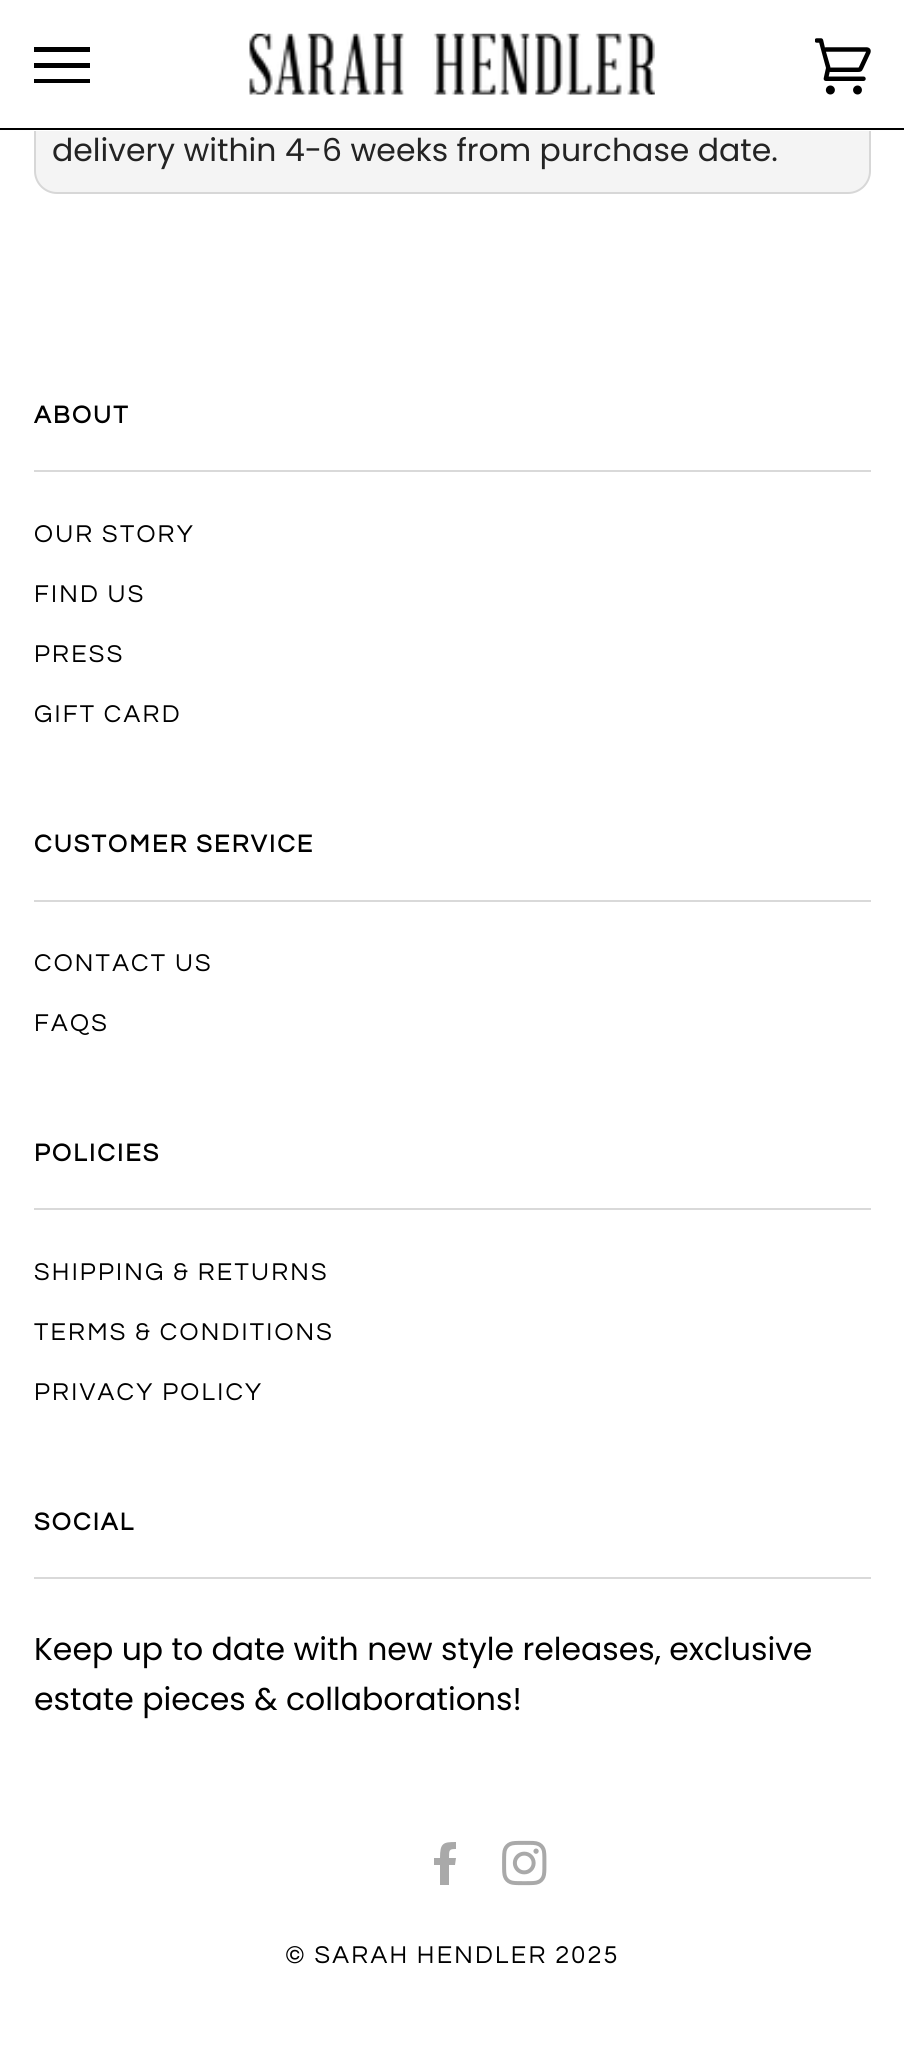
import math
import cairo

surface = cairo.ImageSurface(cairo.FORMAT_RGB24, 904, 2051)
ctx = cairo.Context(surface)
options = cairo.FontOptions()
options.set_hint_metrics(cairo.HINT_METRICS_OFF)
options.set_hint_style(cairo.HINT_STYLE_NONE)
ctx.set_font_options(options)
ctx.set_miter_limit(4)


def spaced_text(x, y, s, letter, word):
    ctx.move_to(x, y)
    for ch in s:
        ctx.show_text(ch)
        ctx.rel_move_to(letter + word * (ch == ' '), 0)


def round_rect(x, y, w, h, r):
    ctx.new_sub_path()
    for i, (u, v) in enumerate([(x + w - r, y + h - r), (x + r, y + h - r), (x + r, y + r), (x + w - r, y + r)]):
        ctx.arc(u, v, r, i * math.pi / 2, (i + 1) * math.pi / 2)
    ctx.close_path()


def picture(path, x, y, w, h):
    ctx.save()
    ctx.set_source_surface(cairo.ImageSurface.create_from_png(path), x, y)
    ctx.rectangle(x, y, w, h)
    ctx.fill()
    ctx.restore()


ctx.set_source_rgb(1, 1, 1)
ctx.paint()
ctx.set_source_rgb(0.957, 0.957, 0.957)
round_rect(35, 57, 835, 136, 22)
ctx.fill_preserve()
ctx.set_source_rgb(0.843, 0.843, 0.843)
ctx.stroke()
ctx.set_source_rgb(1, 1, 1)
ctx.rectangle(34, 56, 837, 75)
ctx.fill()
ctx.set_source_rgb(0, 0, 0)
ctx.rectangle(0, 128, 904, 2)
ctx.fill()
ctx.new_path()
ctx.move_to(34, 47)
ctx.line_to(90, 47)
ctx.line_to(90, 52)
ctx.line_to(34, 52)
ctx.close_path()
ctx.move_to(34, 63)
ctx.line_to(90, 63)
ctx.line_to(90, 68)
ctx.line_to(34, 68)
ctx.close_path()
ctx.move_to(34, 79)
ctx.line_to(90, 79)
ctx.line_to(90, 83)
ctx.line_to(34, 83)
ctx.close_path()
ctx.fill()
picture("img1.png", 249, 33, 406, 62)
picture("img2.png", 815, 38, 56, 57)
ctx.select_font_face("Poppins")
ctx.set_font_size(31.5)
ctx.set_source_rgb(0.137, 0.137, 0.137)
ctx.move_to(52, 161)
ctx.show_text("delivery within 4-6 weeks from purchase date.")
ctx.select_font_face("Questrial", cairo.FONT_SLANT_NORMAL, cairo.FONT_WEIGHT_BOLD)
ctx.set_font_size(25.25)
ctx.set_source_rgb(0, 0, 0)
spaced_text(34, 423, "ABOUT", 2.25, 0)
ctx.set_source_rgb(0.851, 0.851, 0.851)
ctx.rectangle(34, 470, 837, 2)
ctx.fill()
ctx.select_font_face("Questrial")
ctx.set_source_rgb(0, 0, 0)
spaced_text(34, 542, "OUR STORY", 2.25, 0)
spaced_text(34, 602, "FIND US", 2.25, 0)
spaced_text(34, 662, "PRESS", 2.25, 0)
spaced_text(34, 722, "GIFT CARD", 2.25, 0)
ctx.select_font_face("Questrial", cairo.FONT_SLANT_NORMAL, cairo.FONT_WEIGHT_BOLD)
spaced_text(34, 852, "CUSTOMER SERVICE", 2.25, 0)
ctx.set_source_rgb(0.851, 0.851, 0.851)
ctx.rectangle(34, 900, 837, 2)
ctx.fill()
ctx.select_font_face("Questrial")
ctx.set_source_rgb(0, 0, 0)
spaced_text(34, 971, "CONTACT US", 2.25, 0)
spaced_text(34, 1031, "FAQS", 2.25, 0)
ctx.select_font_face("Questrial", cairo.FONT_SLANT_NORMAL, cairo.FONT_WEIGHT_BOLD)
spaced_text(34, 1161, "POLICIES", 2.25, 0)
ctx.set_source_rgb(0.851, 0.851, 0.851)
ctx.rectangle(34, 1208, 837, 2)
ctx.fill()
ctx.select_font_face("Questrial")
ctx.set_source_rgb(0, 0, 0)
spaced_text(34, 1280, "SHIPPING & RETURNS", 2.25, 0)
spaced_text(34, 1340, "TERMS & CONDITIONS", 2.25, 0)
spaced_text(34, 1400, "PRIVACY POLICY", 2.25, 0)
ctx.select_font_face("Questrial", cairo.FONT_SLANT_NORMAL, cairo.FONT_WEIGHT_BOLD)
spaced_text(34, 1530, "SOCIAL", 2.25, 0)
ctx.set_source_rgb(0.851, 0.851, 0.851)
ctx.rectangle(34, 1577, 837, 2)
ctx.fill()
ctx.select_font_face("Poppins")
ctx.set_font_size(31.5)
ctx.set_source_rgb(0, 0, 0)
ctx.move_to(34, 1660)
ctx.show_text("Keep up to date with new style releases, exclusive")
ctx.move_to(34, 1710)
ctx.show_text("estate pieces & collaborations!")
ctx.set_source_rgb(0.663, 0.663, 0.663)
ctx.new_path()
ctx.move_to(449, 1885)
ctx.line_to(449, 1865)
ctx.line_to(455, 1865)
ctx.line_to(456, 1858)
ctx.line_to(449, 1858)
ctx.curve_to(449, 1850, 449, 1849, 456, 1849)
ctx.line_to(456, 1842)
ctx.curve_to(443, 1842, 440, 1843, 440, 1858)
ctx.line_to(434, 1858)
ctx.line_to(434, 1865)
ctx.line_to(440, 1865)
ctx.line_to(440, 1885)
ctx.close_path()
ctx.fill()
picture("img3.png", 502, 1840, 45, 46)
ctx.select_font_face("Questrial")
ctx.set_font_size(25.25)
ctx.set_source_rgb(0, 0, 0)
spaced_text(285, 1963, "© SARAH HENDLER 2025", 2.25, 0)
surface.write_to_png("page.png")
